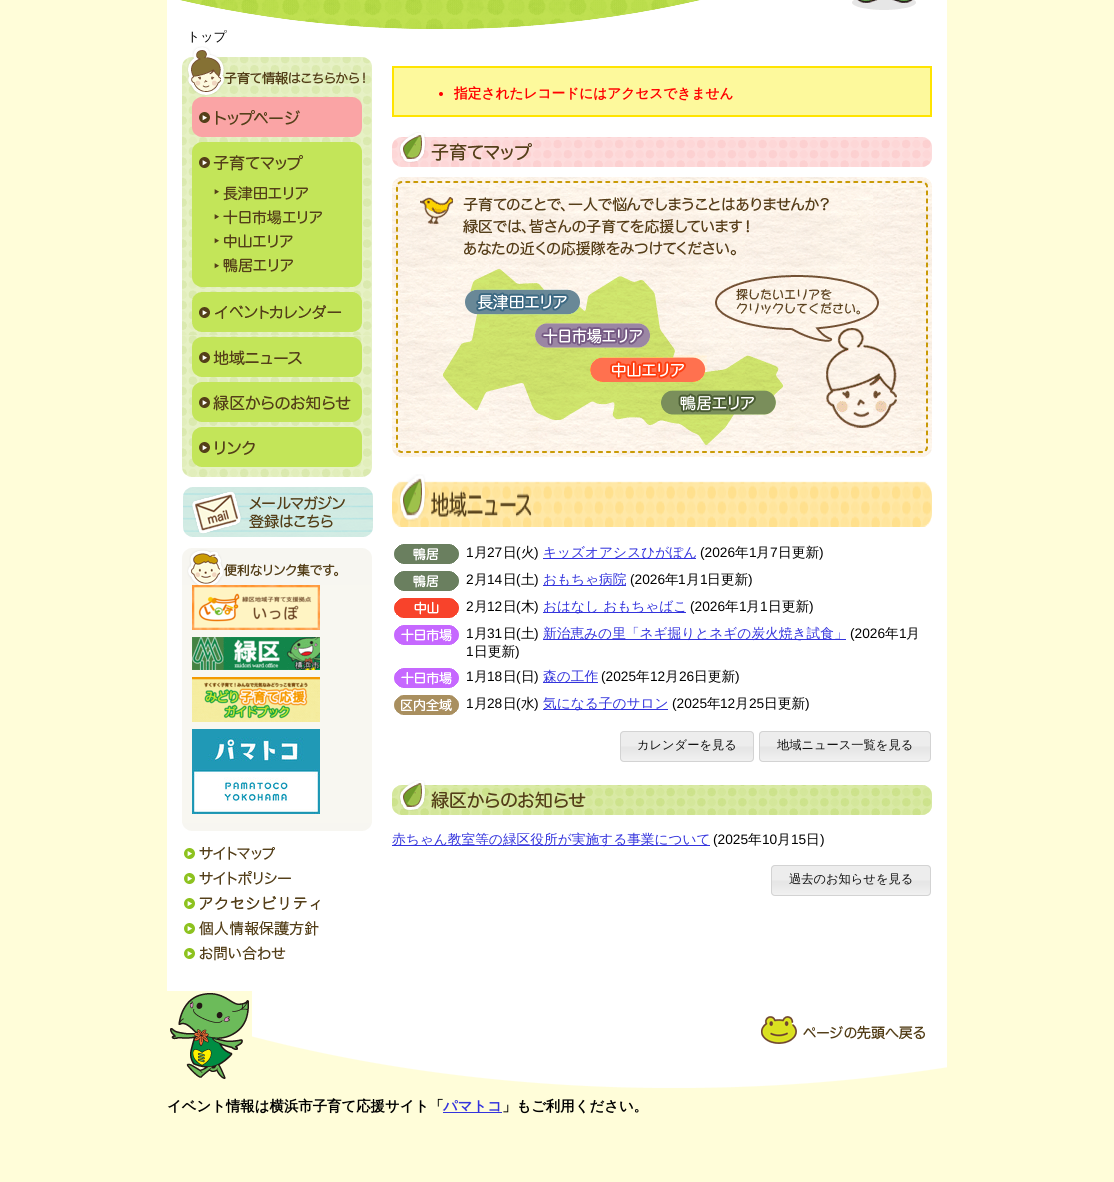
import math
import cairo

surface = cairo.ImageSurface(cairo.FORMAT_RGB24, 1114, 1182)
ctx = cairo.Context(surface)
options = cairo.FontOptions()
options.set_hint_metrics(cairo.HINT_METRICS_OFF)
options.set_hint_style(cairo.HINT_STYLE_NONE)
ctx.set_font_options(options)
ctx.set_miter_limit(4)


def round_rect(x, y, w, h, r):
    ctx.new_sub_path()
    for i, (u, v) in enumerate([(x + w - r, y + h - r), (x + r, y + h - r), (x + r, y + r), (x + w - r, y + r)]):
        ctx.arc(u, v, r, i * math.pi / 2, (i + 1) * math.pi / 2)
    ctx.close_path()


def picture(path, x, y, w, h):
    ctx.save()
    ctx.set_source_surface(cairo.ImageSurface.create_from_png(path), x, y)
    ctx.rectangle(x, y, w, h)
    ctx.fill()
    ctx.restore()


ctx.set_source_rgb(1, 0.992, 0.851)
ctx.paint()
ctx.set_source_rgb(1, 1, 1)
ctx.rectangle(167, 0, 780, 991)
ctx.fill()
picture("img1.png", 180, 0, 736, 29)
ctx.select_font_face("WenQuanYi Zen Hei Medium")
ctx.set_font_size(13)
ctx.set_source_rgb(0, 0, 0)
ctx.move_to(187, 41)
ctx.show_text("トップ")
picture("img2.png", 182, 46, 190, 50)
picture("img3.png", 182, 96, 190, 43)
picture("img4.png", 182, 139, 190, 42)
picture("img5.png", 182, 181, 190, 24)
picture("img6.png", 182, 205, 190, 24)
picture("img7.png", 182, 229, 190, 24)
picture("img8.png", 182, 253, 190, 24)
picture("img9.png", 182, 277, 190, 13)
picture("img10.png", 182, 290, 190, 45)
picture("img11.png", 182, 335, 190, 45)
picture("img12.png", 182, 380, 190, 45)
picture("img13.png", 182, 425, 190, 44)
picture("img14.png", 182, 469, 190, 8)
picture("img15.png", 183, 487, 190, 50)
ctx.set_source_rgb(0.969, 0.965, 0.945)
ctx.rectangle(182, 585, 190, 238)
ctx.fill()
picture("img16.png", 182, 823, 190, 8)
picture("img17.png", 182, 547, 190, 38)
picture("img18.png", 192, 585, 128, 45)
picture("img19.png", 192, 637, 128, 33)
picture("img20.png", 192, 677, 128, 45)
picture("img21.png", 192, 729, 128, 85)
picture("img22.png", 184, 846, 91, 14)
picture("img23.png", 184, 871, 107, 14)
picture("img24.png", 184, 896, 136, 14)
picture("img25.png", 184, 921, 135, 15)
picture("img26.png", 184, 946, 102, 15)
ctx.set_source_rgb(0.992, 0.973, 0.612)
ctx.rectangle(393, 67, 538, 49)
ctx.fill_preserve()
ctx.set_source_rgb(1, 0.894, 0)
ctx.stroke()
ctx.set_source_rgb(1, 0, 0)
ctx.arc(441, 94, 2, 0, 2 * math.pi)
ctx.fill()
ctx.select_font_face("WenQuanYi Zen Hei", cairo.FONT_SLANT_NORMAL, cairo.FONT_WEIGHT_BOLD)
ctx.set_font_size(13.7)
ctx.move_to(454, 98)
ctx.show_text("指定されたレコードにはアクセスできません")
picture("img27.png", 392, 132, 540, 35)
picture("img28.png", 392, 177, 540, 280)
picture("img29.png", 464, 288, 116, 29)
picture("img30.png", 534, 323, 117, 26)
picture("img31.png", 590, 355, 117, 28)
picture("img32.png", 661, 390, 117, 26)
picture("img33.png", 392, 474, 540, 53)
picture("img34.png", 394, 544, 65, 20)
ctx.select_font_face("Liberation Sans")
ctx.set_source_rgb(0, 0, 0)
ctx.move_to(466, 557)
ctx.show_text("1")
ctx.select_font_face("WenQuanYi Zen Hei Medium")
ctx.move_to(474, 557)
ctx.show_text("月")
ctx.select_font_face("Liberation Sans")
ctx.move_to(487, 557)
ctx.show_text("27")
ctx.select_font_face("WenQuanYi Zen Hei Medium")
ctx.move_to(503, 557)
ctx.show_text("日")
ctx.select_font_face("Liberation Sans")
ctx.move_to(516, 557)
ctx.show_text("(")
ctx.select_font_face("WenQuanYi Zen Hei Medium")
ctx.move_to(521, 557)
ctx.show_text("火")
ctx.select_font_face("Liberation Sans")
ctx.move_to(534, 557)
ctx.show_text(")")
ctx.set_source_rgb(0.2, 0.2, 0.867)
ctx.rectangle(543, 558, 153, 1)
ctx.fill()
ctx.select_font_face("WenQuanYi Zen Hei Medium")
ctx.move_to(543, 557)
ctx.show_text("キッズオアシスひがぽん")
ctx.select_font_face("Liberation Sans")
ctx.set_source_rgb(0, 0, 0)
ctx.move_to(700, 557)
ctx.show_text("(2026")
ctx.select_font_face("WenQuanYi Zen Hei Medium")
ctx.move_to(735, 557)
ctx.show_text("年")
ctx.select_font_face("Liberation Sans")
ctx.move_to(749, 557)
ctx.show_text("1")
ctx.select_font_face("WenQuanYi Zen Hei Medium")
ctx.move_to(756, 557)
ctx.show_text("月")
ctx.select_font_face("Liberation Sans")
ctx.move_to(770, 557)
ctx.show_text("7")
ctx.select_font_face("WenQuanYi Zen Hei Medium")
ctx.move_to(778, 557)
ctx.show_text("日更新")
ctx.select_font_face("Liberation Sans")
ctx.move_to(819, 557)
ctx.show_text(")")
picture("img34.png", 394, 571, 65, 20)
ctx.move_to(466, 584)
ctx.show_text("2")
ctx.select_font_face("WenQuanYi Zen Hei Medium")
ctx.move_to(474, 584)
ctx.show_text("月")
ctx.select_font_face("Liberation Sans")
ctx.move_to(487, 584)
ctx.show_text("14")
ctx.select_font_face("WenQuanYi Zen Hei Medium")
ctx.move_to(503, 584)
ctx.show_text("日")
ctx.select_font_face("Liberation Sans")
ctx.move_to(516, 584)
ctx.show_text("(")
ctx.select_font_face("WenQuanYi Zen Hei Medium")
ctx.move_to(521, 584)
ctx.show_text("土")
ctx.select_font_face("Liberation Sans")
ctx.move_to(534, 584)
ctx.show_text(")")
ctx.set_source_rgb(0.2, 0.2, 0.867)
ctx.rectangle(543, 585, 83, 1)
ctx.fill()
ctx.select_font_face("WenQuanYi Zen Hei Medium")
ctx.move_to(543, 584)
ctx.show_text("おもちゃ病院")
ctx.select_font_face("Liberation Sans")
ctx.set_source_rgb(0, 0, 0)
ctx.move_to(630, 584)
ctx.show_text("(2026")
ctx.select_font_face("WenQuanYi Zen Hei Medium")
ctx.move_to(665, 584)
ctx.show_text("年")
ctx.select_font_face("Liberation Sans")
ctx.move_to(678, 584)
ctx.show_text("1")
ctx.select_font_face("WenQuanYi Zen Hei Medium")
ctx.move_to(686, 584)
ctx.show_text("月")
ctx.select_font_face("Liberation Sans")
ctx.move_to(700, 584)
ctx.show_text("1")
ctx.select_font_face("WenQuanYi Zen Hei Medium")
ctx.move_to(707, 584)
ctx.show_text("日更新")
ctx.select_font_face("Liberation Sans")
ctx.move_to(748, 584)
ctx.show_text(")")
picture("img35.png", 394, 598, 65, 20)
ctx.move_to(466, 611)
ctx.show_text("2")
ctx.select_font_face("WenQuanYi Zen Hei Medium")
ctx.move_to(474, 611)
ctx.show_text("月")
ctx.select_font_face("Liberation Sans")
ctx.move_to(487, 611)
ctx.show_text("12")
ctx.select_font_face("WenQuanYi Zen Hei Medium")
ctx.move_to(503, 611)
ctx.show_text("日")
ctx.select_font_face("Liberation Sans")
ctx.move_to(516, 611)
ctx.show_text("(")
ctx.select_font_face("WenQuanYi Zen Hei Medium")
ctx.move_to(521, 611)
ctx.show_text("木")
ctx.select_font_face("Liberation Sans")
ctx.move_to(534, 611)
ctx.show_text(")")
ctx.set_source_rgb(0.2, 0.2, 0.867)
ctx.rectangle(543, 612, 143, 1)
ctx.fill()
ctx.select_font_face("WenQuanYi Zen Hei Medium")
ctx.move_to(543, 611)
ctx.show_text("おはなし おもちゃばこ")
ctx.select_font_face("Liberation Sans")
ctx.set_source_rgb(0, 0, 0)
ctx.move_to(690, 611)
ctx.show_text("(2026")
ctx.select_font_face("WenQuanYi Zen Hei Medium")
ctx.move_to(725, 611)
ctx.show_text("年")
ctx.select_font_face("Liberation Sans")
ctx.move_to(739, 611)
ctx.show_text("1")
ctx.select_font_face("WenQuanYi Zen Hei Medium")
ctx.move_to(746, 611)
ctx.show_text("月")
ctx.select_font_face("Liberation Sans")
ctx.move_to(760, 611)
ctx.show_text("1")
ctx.select_font_face("WenQuanYi Zen Hei Medium")
ctx.move_to(768, 611)
ctx.show_text("日更新")
ctx.select_font_face("Liberation Sans")
ctx.move_to(809, 611)
ctx.show_text(")")
picture("img36.png", 394, 625, 65, 20)
ctx.move_to(466, 638)
ctx.show_text("1")
ctx.select_font_face("WenQuanYi Zen Hei Medium")
ctx.move_to(474, 638)
ctx.show_text("月")
ctx.select_font_face("Liberation Sans")
ctx.move_to(487, 638)
ctx.show_text("31")
ctx.select_font_face("WenQuanYi Zen Hei Medium")
ctx.move_to(503, 638)
ctx.show_text("日")
ctx.select_font_face("Liberation Sans")
ctx.move_to(516, 638)
ctx.show_text("(")
ctx.select_font_face("WenQuanYi Zen Hei Medium")
ctx.move_to(521, 638)
ctx.show_text("土")
ctx.select_font_face("Liberation Sans")
ctx.move_to(534, 638)
ctx.show_text(")")
ctx.set_source_rgb(0.2, 0.2, 0.867)
ctx.rectangle(543, 639, 303, 1)
ctx.fill()
ctx.select_font_face("WenQuanYi Zen Hei Medium")
ctx.move_to(543, 638)
ctx.show_text("新治恵みの里「ネギ掘りとネギの炭火焼き試食」")
ctx.select_font_face("Liberation Sans")
ctx.set_source_rgb(0, 0, 0)
ctx.move_to(850, 638)
ctx.show_text("(2026")
ctx.select_font_face("WenQuanYi Zen Hei Medium")
ctx.move_to(885, 638)
ctx.show_text("年")
ctx.select_font_face("Liberation Sans")
ctx.move_to(899, 638)
ctx.show_text("1")
ctx.select_font_face("WenQuanYi Zen Hei Medium")
ctx.move_to(906, 638)
ctx.show_text("月")
ctx.select_font_face("Liberation Sans")
ctx.move_to(466, 656)
ctx.show_text("1")
ctx.select_font_face("WenQuanYi Zen Hei Medium")
ctx.move_to(474, 656)
ctx.show_text("日更新")
ctx.select_font_face("Liberation Sans")
ctx.move_to(515, 656)
ctx.show_text(")")
picture("img36.png", 394, 668, 65, 20)
ctx.move_to(466, 681)
ctx.show_text("1")
ctx.select_font_face("WenQuanYi Zen Hei Medium")
ctx.move_to(474, 681)
ctx.show_text("月")
ctx.select_font_face("Liberation Sans")
ctx.move_to(487, 681)
ctx.show_text("18")
ctx.select_font_face("WenQuanYi Zen Hei Medium")
ctx.move_to(503, 681)
ctx.show_text("日")
ctx.select_font_face("Liberation Sans")
ctx.move_to(516, 681)
ctx.show_text("(")
ctx.select_font_face("WenQuanYi Zen Hei Medium")
ctx.move_to(521, 681)
ctx.show_text("日")
ctx.select_font_face("Liberation Sans")
ctx.move_to(534, 681)
ctx.show_text(")")
ctx.set_source_rgb(0.2, 0.2, 0.867)
ctx.rectangle(543, 682, 55, 1)
ctx.fill()
ctx.select_font_face("WenQuanYi Zen Hei Medium")
ctx.move_to(543, 681)
ctx.show_text("森の工作")
ctx.select_font_face("Liberation Sans")
ctx.set_source_rgb(0, 0, 0)
ctx.move_to(601, 681)
ctx.show_text("(2025")
ctx.select_font_face("WenQuanYi Zen Hei Medium")
ctx.move_to(636, 681)
ctx.show_text("年")
ctx.select_font_face("Liberation Sans")
ctx.move_to(650, 681)
ctx.show_text("12")
ctx.select_font_face("WenQuanYi Zen Hei Medium")
ctx.move_to(665, 681)
ctx.show_text("月")
ctx.select_font_face("Liberation Sans")
ctx.move_to(679, 681)
ctx.show_text("26")
ctx.select_font_face("WenQuanYi Zen Hei Medium")
ctx.move_to(694, 681)
ctx.show_text("日更新")
ctx.select_font_face("Liberation Sans")
ctx.move_to(735, 681)
ctx.show_text(")")
picture("img37.png", 394, 695, 65, 20)
ctx.move_to(466, 708)
ctx.show_text("1")
ctx.select_font_face("WenQuanYi Zen Hei Medium")
ctx.move_to(474, 708)
ctx.show_text("月")
ctx.select_font_face("Liberation Sans")
ctx.move_to(487, 708)
ctx.show_text("28")
ctx.select_font_face("WenQuanYi Zen Hei Medium")
ctx.move_to(503, 708)
ctx.show_text("日")
ctx.select_font_face("Liberation Sans")
ctx.move_to(516, 708)
ctx.show_text("(")
ctx.select_font_face("WenQuanYi Zen Hei Medium")
ctx.move_to(521, 708)
ctx.show_text("水")
ctx.select_font_face("Liberation Sans")
ctx.move_to(534, 708)
ctx.show_text(")")
ctx.set_source_rgb(0.2, 0.2, 0.867)
ctx.rectangle(543, 709, 125, 1)
ctx.fill()
ctx.select_font_face("WenQuanYi Zen Hei Medium")
ctx.move_to(543, 708)
ctx.show_text("気になる子のサロン")
ctx.select_font_face("Liberation Sans")
ctx.set_source_rgb(0, 0, 0)
ctx.move_to(672, 708)
ctx.show_text("(2025")
ctx.select_font_face("WenQuanYi Zen Hei Medium")
ctx.move_to(707, 708)
ctx.show_text("年")
ctx.select_font_face("Liberation Sans")
ctx.move_to(720, 708)
ctx.show_text("12")
ctx.select_font_face("WenQuanYi Zen Hei Medium")
ctx.move_to(735, 708)
ctx.show_text("月")
ctx.select_font_face("Liberation Sans")
ctx.move_to(749, 708)
ctx.show_text("25")
ctx.select_font_face("WenQuanYi Zen Hei Medium")
ctx.move_to(764, 708)
ctx.show_text("日更新")
ctx.select_font_face("Liberation Sans")
ctx.move_to(805, 708)
ctx.show_text(")")
picture("img38.png", 620, 731, 134, 31)
round_rect(620.5, 731.5, 133, 30, 3.5)
ctx.set_source_rgb(0.827, 0.827, 0.827)
ctx.set_line_width(1)
ctx.stroke()
ctx.select_font_face("WenQuanYi Zen Hei Medium")
ctx.set_font_size(12.25)
ctx.set_source_rgb(0.067, 0.067, 0.067)
ctx.move_to(637, 749)
ctx.show_text("カレンダーを見る")
picture("img39.png", 759, 731, 172, 31)
round_rect(759.5, 731.5, 171, 30, 3.5)
ctx.set_source_rgb(0.827, 0.827, 0.827)
ctx.stroke()
ctx.set_source_rgb(0.067, 0.067, 0.067)
ctx.move_to(777, 749)
ctx.show_text("地域ニュース一覧を見る")
picture("img40.png", 392, 780, 540, 35)
ctx.set_source_rgb(0.2, 0.2, 0.867)
ctx.rectangle(392, 845, 318, 1)
ctx.fill()
ctx.set_font_size(13.7)
ctx.move_to(392, 844)
ctx.show_text("赤ちゃん教室等の緑区役所が実施する事業について")
ctx.select_font_face("Liberation Sans")
ctx.set_source_rgb(0, 0, 0)
ctx.move_to(713, 844)
ctx.show_text("(2025")
ctx.select_font_face("WenQuanYi Zen Hei Medium")
ctx.move_to(748, 844)
ctx.show_text("年")
ctx.select_font_face("Liberation Sans")
ctx.move_to(762, 844)
ctx.show_text("10")
ctx.select_font_face("WenQuanYi Zen Hei Medium")
ctx.move_to(777, 844)
ctx.show_text("月")
ctx.select_font_face("Liberation Sans")
ctx.move_to(791, 844)
ctx.show_text("15")
ctx.select_font_face("WenQuanYi Zen Hei Medium")
ctx.move_to(806, 844)
ctx.show_text("日")
ctx.select_font_face("Liberation Sans")
ctx.move_to(820, 844)
ctx.show_text(")")
picture("img41.png", 771, 865, 160, 31)
round_rect(771.5, 865.5, 159, 30, 3.5)
ctx.set_source_rgb(0.827, 0.827, 0.827)
ctx.stroke()
ctx.select_font_face("WenQuanYi Zen Hei Medium")
ctx.set_font_size(12.25)
ctx.set_source_rgb(0.067, 0.067, 0.067)
ctx.move_to(789, 883)
ctx.show_text("過去のお知らせを見る")
picture("img42.png", 167, 991, 780, 97)
picture("img43.png", 167, 991, 85, 88)
picture("img44.png", 761, 1016, 164, 28)
ctx.select_font_face("WenQuanYi Zen Hei", cairo.FONT_SLANT_NORMAL, cairo.FONT_WEIGHT_BOLD)
ctx.set_font_size(14.4)
ctx.set_source_rgb(0, 0, 0)
ctx.move_to(167, 1111)
ctx.show_text("イベント情報は横浜市子育て応援サイト「")
ctx.set_source_rgb(0.2, 0.2, 0.867)
ctx.rectangle(443, 1112, 59, 1)
ctx.fill()
ctx.move_to(443, 1111)
ctx.show_text("パマトコ")
ctx.set_source_rgb(0, 0, 0)
ctx.move_to(502, 1111)
ctx.show_text("」もご利用ください。")
surface.write_to_png("page.png")
